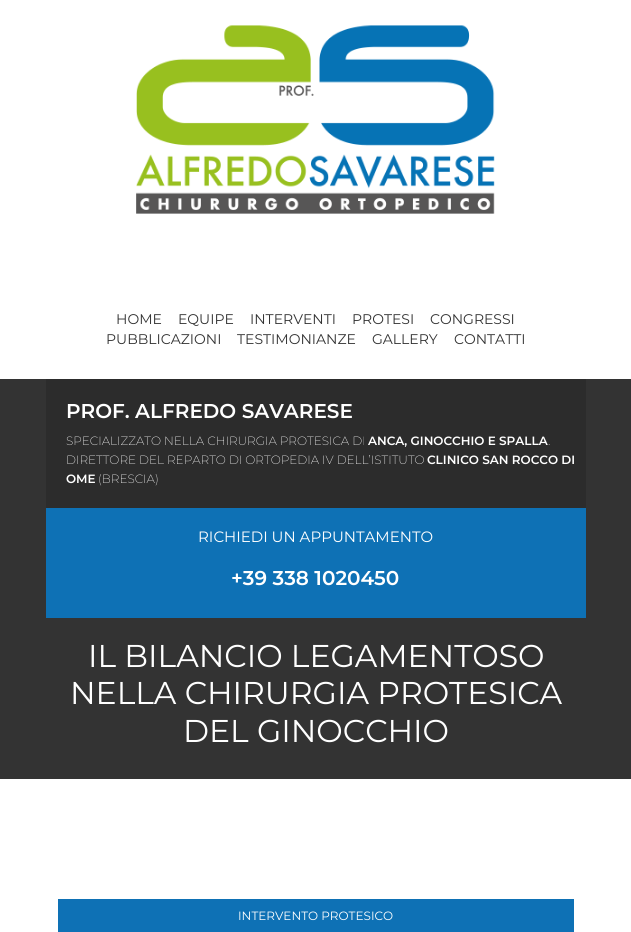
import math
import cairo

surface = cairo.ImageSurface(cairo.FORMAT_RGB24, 631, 932)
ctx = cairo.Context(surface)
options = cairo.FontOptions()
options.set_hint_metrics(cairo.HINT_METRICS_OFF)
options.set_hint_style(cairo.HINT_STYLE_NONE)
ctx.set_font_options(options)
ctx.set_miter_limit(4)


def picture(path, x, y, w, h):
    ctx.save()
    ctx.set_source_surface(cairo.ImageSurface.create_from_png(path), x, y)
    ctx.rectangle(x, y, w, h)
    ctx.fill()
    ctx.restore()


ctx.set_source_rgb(1, 1, 1)
ctx.paint()
picture("img1.png", 136, 25, 359, 189)
ctx.select_font_face("Montserrat")
ctx.set_font_size(14)
ctx.set_source_rgb(0.2, 0.2, 0.2)
ctx.move_to(116, 324)
ctx.show_text("HOME")
ctx.move_to(178, 324)
ctx.show_text("EQUIPE")
ctx.move_to(250, 324)
ctx.show_text("INTERVENTI")
ctx.move_to(352, 324)
ctx.show_text("PROTESI")
ctx.move_to(430, 324)
ctx.show_text("CONGRESSI")
ctx.move_to(106, 344)
ctx.show_text("PUBBLICAZIONI")
ctx.move_to(237, 344)
ctx.show_text("TESTIMONIANZE")
ctx.move_to(372, 344)
ctx.show_text("GALLERY")
ctx.move_to(454, 344)
ctx.show_text("CONTATTI")
ctx.rectangle(0, 379, 631, 400)
ctx.fill()
ctx.set_source_rgb(0.173, 0.173, 0.173)
ctx.rectangle(46, 379, 540, 129)
ctx.fill()
ctx.select_font_face("Montserrat SemiBold")
ctx.set_font_size(20)
ctx.set_source_rgb(1, 1, 1)
ctx.move_to(66, 418)
ctx.show_text("PROF. ALFREDO SAVARESE")
ctx.select_font_face("Montserrat ExtraLight")
ctx.set_font_size(12)
ctx.move_to(66, 445)
ctx.show_text("SPECIALIZZATO NELLA CHIRURGIA PROTESICA DI")
ctx.select_font_face("Montserrat SemiBold")
ctx.move_to(368, 445)
ctx.show_text("ANCA, GINOCCHIO E SPALLA")
ctx.select_font_face("Montserrat ExtraLight")
ctx.move_to(548, 445)
ctx.show_text(".")
ctx.move_to(66, 464)
ctx.show_text("DIRETTORE DEL REPARTO DI ORTOPEDIA IV DELL’ISTITUTO")
ctx.select_font_face("Montserrat SemiBold")
ctx.move_to(427, 464)
ctx.show_text("CLINICO SAN ROCCO DI")
ctx.move_to(66, 483)
ctx.show_text("OME")
ctx.select_font_face("Montserrat ExtraLight")
ctx.move_to(98, 483)
ctx.show_text("(BRESCIA)")
ctx.set_source_rgb(0.055, 0.443, 0.71)
ctx.rectangle(46, 508, 540, 110)
ctx.fill()
ctx.select_font_face("Montserrat")
ctx.set_font_size(15)
ctx.set_source_rgb(1, 1, 1)
ctx.move_to(198, 542)
ctx.show_text("RICHIEDI UN APPUNTAMENTO")
ctx.select_font_face("Montserrat SemiBold")
ctx.set_font_size(20)
ctx.move_to(231, 585)
ctx.show_text("+39 338 1020450")
ctx.select_font_face("Montserrat")
ctx.set_font_size(31.5)
ctx.move_to(88, 667)
ctx.show_text("IL BILANCIO LEGAMENTOSO")
ctx.move_to(70, 704)
ctx.show_text("NELLA CHIRURGIA PROTESICA")
ctx.move_to(183, 742)
ctx.show_text("DEL GINOCCHIO")
ctx.set_source_rgb(0.055, 0.443, 0.71)
ctx.rectangle(58, 899, 516, 33)
ctx.fill()
ctx.set_font_size(12)
ctx.set_source_rgb(1, 1, 1)
ctx.move_to(238, 920)
ctx.show_text("INTERVENTO PROTESICO")
surface.write_to_png("page.png")
